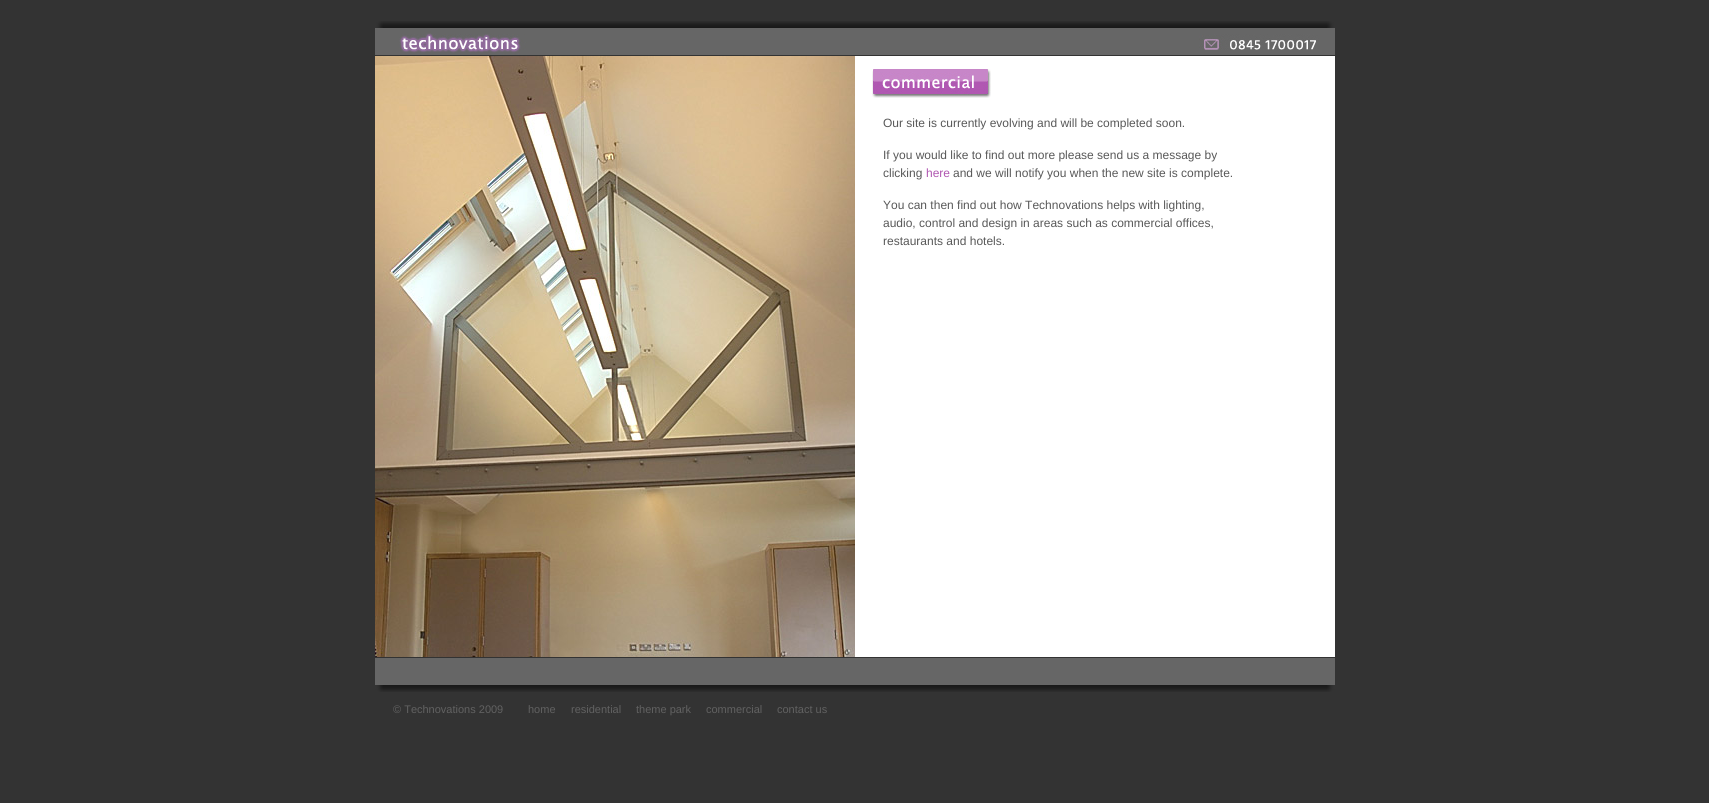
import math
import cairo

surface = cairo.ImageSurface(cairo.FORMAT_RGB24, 1709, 803)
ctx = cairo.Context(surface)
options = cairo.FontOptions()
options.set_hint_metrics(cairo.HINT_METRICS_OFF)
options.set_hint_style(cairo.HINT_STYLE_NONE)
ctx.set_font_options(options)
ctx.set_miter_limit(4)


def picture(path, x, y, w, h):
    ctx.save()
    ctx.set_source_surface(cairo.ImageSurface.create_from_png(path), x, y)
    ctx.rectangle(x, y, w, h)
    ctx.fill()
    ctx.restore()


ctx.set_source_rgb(0.2, 0.2, 0.2)
ctx.paint()
picture("img1.png", 375, 21, 960, 34)
picture("img2.png", 375, 56, 480, 601)
ctx.set_source_rgb(1, 1, 1)
ctx.rectangle(855, 56, 480, 601)
ctx.fill()
picture("img3.png", 871, 69, 120, 29)
ctx.select_font_face("Liberation Sans")
ctx.set_font_size(12)
ctx.set_source_rgb(0.345, 0.345, 0.345)
ctx.move_to(883, 127)
ctx.show_text("Our site is currently evolving and will be completed soon.")
ctx.move_to(883, 159)
ctx.show_text("If you would like to find out more please send us a message by")
ctx.move_to(883, 177)
ctx.show_text("clicking")
ctx.set_source_rgb(0.69, 0.341, 0.694)
ctx.move_to(926, 177)
ctx.show_text("here")
ctx.set_source_rgb(0.345, 0.345, 0.345)
ctx.move_to(953, 177)
ctx.show_text("and we will notify you when the new site is complete.")
ctx.move_to(883, 209)
ctx.show_text("You can then find out how Technovations helps with lighting,")
ctx.move_to(883, 227)
ctx.show_text("audio, control and design in areas such as commercial offices,")
ctx.move_to(883, 245)
ctx.show_text("restaurants and hotels.")
picture("img4.png", 375, 658, 960, 34)
ctx.set_font_size(11)
ctx.set_source_rgb(0.38, 0.38, 0.38)
ctx.move_to(393, 713)
ctx.show_text("© Technovations 2009")
ctx.move_to(528, 713)
ctx.show_text("home")
ctx.move_to(571, 713)
ctx.show_text("residential")
ctx.move_to(636, 713)
ctx.show_text("theme park")
ctx.move_to(706, 713)
ctx.show_text("commercial")
ctx.move_to(777, 713)
ctx.show_text("contact us")
surface.write_to_png("page.png")
